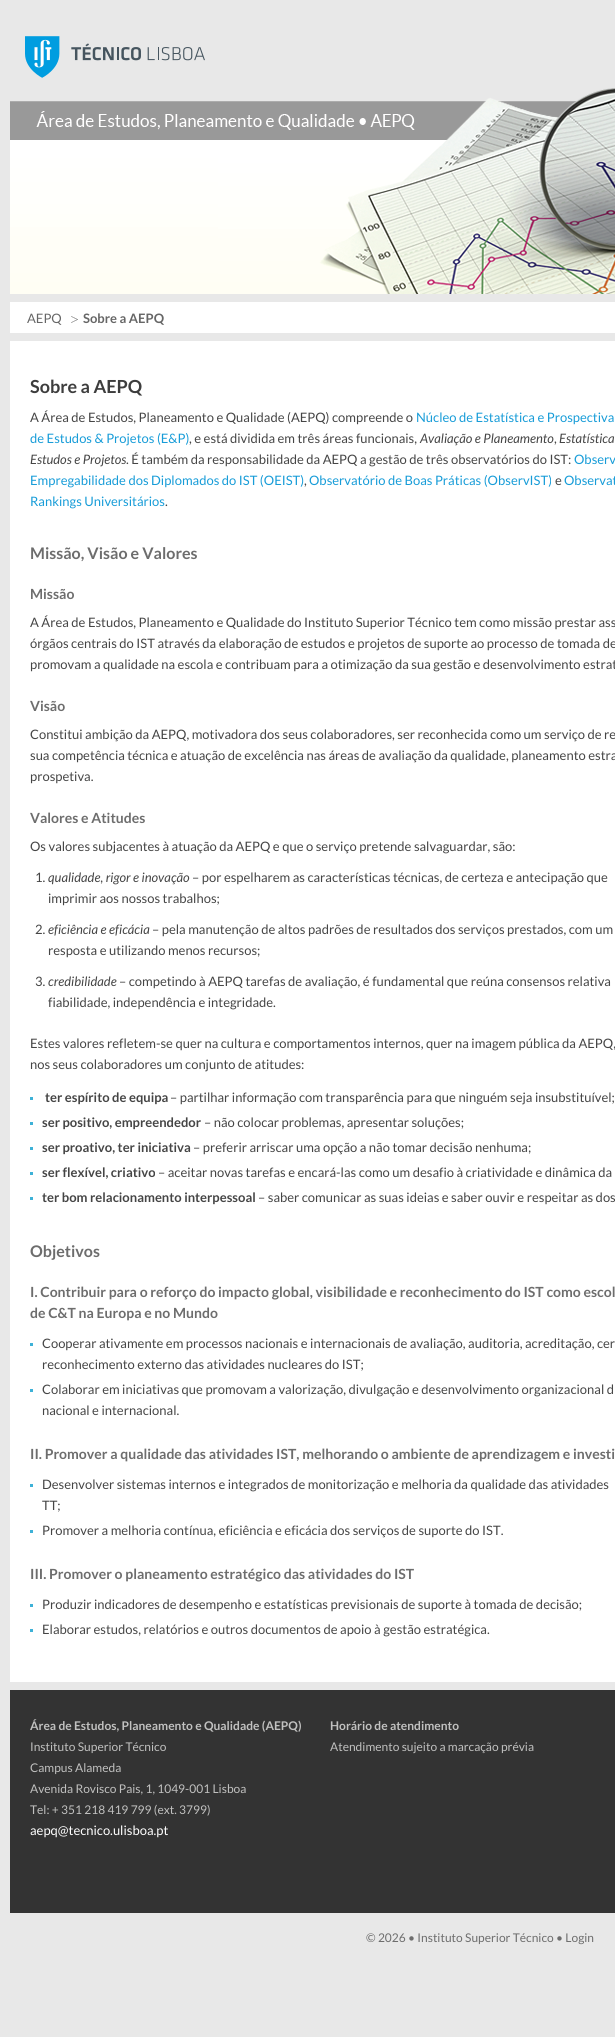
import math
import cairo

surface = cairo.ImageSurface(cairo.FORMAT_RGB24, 615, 2037)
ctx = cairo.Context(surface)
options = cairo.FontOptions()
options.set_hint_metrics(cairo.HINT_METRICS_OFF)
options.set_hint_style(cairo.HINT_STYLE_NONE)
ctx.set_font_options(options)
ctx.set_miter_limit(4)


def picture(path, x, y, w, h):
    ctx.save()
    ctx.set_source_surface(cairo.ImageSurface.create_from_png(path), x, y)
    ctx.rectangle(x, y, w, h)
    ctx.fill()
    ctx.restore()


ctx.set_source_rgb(0.91, 0.91, 0.91)
ctx.paint()
picture("img1.png", 25, 36, 180, 42)
picture("img2.png", 10, 88, 605, 206)
ctx.set_source_rgb(1, 1, 1)
ctx.rectangle(10, 302, 605, 31)
ctx.fill()
ctx.select_font_face("Lato")
ctx.set_font_size(13)
ctx.set_source_rgb(0.4, 0.4, 0.4)
ctx.move_to(27, 323)
ctx.show_text("AEPQ")
picture("img3.png", 71, 316, 7, 7)
ctx.select_font_face("Lato", cairo.FONT_SLANT_NORMAL, cairo.FONT_WEIGHT_BOLD)
ctx.move_to(83, 323)
ctx.show_text("Sobre a AEPQ")
ctx.set_source_rgb(1, 1, 1)
ctx.rectangle(10, 341, 605, 1341)
ctx.fill()
ctx.set_font_size(18)
ctx.set_source_rgb(0.239, 0.239, 0.239)
ctx.move_to(30, 393)
ctx.show_text("Sobre a AEPQ")
ctx.select_font_face("Lato")
ctx.set_font_size(13)
ctx.set_source_rgb(0.271, 0.271, 0.271)
ctx.move_to(30, 422)
ctx.show_text("A Área de Estudos, Planeamento e Qualidade (AEPQ) compreende o")
ctx.set_source_rgb(0.09, 0.612, 0.847)
ctx.move_to(416, 422)
ctx.show_text("Núcleo de Estatística e Prospectiva")
ctx.move_to(30, 443)
ctx.show_text("de Estudos & Projetos (E&P)")
ctx.set_source_rgb(0.271, 0.271, 0.271)
ctx.move_to(189, 443)
ctx.show_text(", e está dividida em três áreas funcionais,")
ctx.select_font_face("Lato", cairo.FONT_SLANT_ITALIC)
ctx.move_to(420, 443)
ctx.show_text("Avaliação e Planeamento")
ctx.select_font_face("Lato")
ctx.move_to(554, 443)
ctx.show_text(",")
ctx.select_font_face("Lato", cairo.FONT_SLANT_ITALIC)
ctx.move_to(559, 443)
ctx.show_text("Estatística")
ctx.move_to(30, 464)
ctx.show_text("Estudos e Projetos")
ctx.select_font_face("Lato")
ctx.move_to(126, 464)
ctx.show_text(". É também da responsabilidade da AEPQ a gestão de três observatórios do IST:")
ctx.set_source_rgb(0.09, 0.612, 0.847)
ctx.move_to(574, 464)
ctx.show_text("Observ")
ctx.move_to(30, 485)
ctx.show_text("Empregabilidade dos Diplomados do IST (OEIST)")
ctx.set_source_rgb(0.271, 0.271, 0.271)
ctx.move_to(304, 485)
ctx.show_text(",")
ctx.set_source_rgb(0.09, 0.612, 0.847)
ctx.move_to(309, 485)
ctx.show_text("Observatório de Boas Práticas (ObservIST)")
ctx.set_source_rgb(0.271, 0.271, 0.271)
ctx.move_to(555, 485)
ctx.show_text("e")
ctx.set_source_rgb(0.09, 0.612, 0.847)
ctx.move_to(564, 485)
ctx.show_text("Observat")
ctx.move_to(30, 506)
ctx.show_text("Rankings Universitários")
ctx.set_source_rgb(0.271, 0.271, 0.271)
ctx.move_to(165, 506)
ctx.show_text(".")
ctx.select_font_face("Lato", cairo.FONT_SLANT_NORMAL, cairo.FONT_WEIGHT_BOLD)
ctx.set_font_size(16)
ctx.set_source_rgb(0.427, 0.427, 0.427)
ctx.move_to(30, 559)
ctx.show_text("Missão, Visão e Valores")
ctx.set_font_size(14)
ctx.move_to(30, 599)
ctx.show_text("Missão")
ctx.select_font_face("Lato")
ctx.set_font_size(13)
ctx.set_source_rgb(0.271, 0.271, 0.271)
ctx.move_to(30, 627)
ctx.show_text("A Área de Estudos, Planeamento e Qualidade do Instituto Superior Técnico tem como missão prestar ass")
ctx.move_to(30, 648)
ctx.show_text("órgãos centrais do IST através da elaboração de estudos e projetos de suporte ao processo de tomada de")
ctx.move_to(30, 669)
ctx.show_text("promovam a qualidade na escola e contribuam para a otimização da sua gestão e desenvolvimento estrat")
ctx.select_font_face("Lato", cairo.FONT_SLANT_NORMAL, cairo.FONT_WEIGHT_BOLD)
ctx.set_font_size(14)
ctx.set_source_rgb(0.427, 0.427, 0.427)
ctx.move_to(30, 711)
ctx.show_text("Visão")
ctx.select_font_face("Lato")
ctx.set_font_size(13)
ctx.set_source_rgb(0.271, 0.271, 0.271)
ctx.move_to(30, 739)
ctx.show_text("Constitui ambição da AEPQ, motivadora dos seus colaboradores, ser reconhecida como um serviço de re")
ctx.move_to(30, 760)
ctx.show_text("sua competência técnica e atuação de excelência nas áreas de avaliação da qualidade, planeamento estra")
ctx.move_to(30, 781)
ctx.show_text("prospetiva.")
ctx.select_font_face("Lato", cairo.FONT_SLANT_NORMAL, cairo.FONT_WEIGHT_BOLD)
ctx.set_font_size(14)
ctx.set_source_rgb(0.427, 0.427, 0.427)
ctx.move_to(30, 823)
ctx.show_text("Valores e Atitudes")
ctx.select_font_face("Lato")
ctx.set_font_size(13)
ctx.set_source_rgb(0.271, 0.271, 0.271)
ctx.move_to(30, 851)
ctx.show_text("Os valores subjacentes à atuação da AEPQ e que o serviço pretende salvaguardar, são:")
ctx.move_to(35, 882)
ctx.show_text("1.")
ctx.select_font_face("Lato", cairo.FONT_SLANT_ITALIC)
ctx.move_to(48, 882)
ctx.show_text("qualidade, rigor e inovação")
ctx.select_font_face("Lato")
ctx.move_to(192, 882)
ctx.show_text("– por espelharem as características técnicas, de certeza e antecipação que")
ctx.move_to(48, 903)
ctx.show_text("imprimir aos nossos trabalhos;")
ctx.move_to(35, 934)
ctx.show_text("2.")
ctx.select_font_face("Lato", cairo.FONT_SLANT_ITALIC)
ctx.move_to(48, 934)
ctx.show_text("eficiência e eficácia")
ctx.select_font_face("Lato")
ctx.move_to(152, 934)
ctx.show_text("– pela manutenção de altos padrões de resultados dos serviços prestados, com um")
ctx.move_to(48, 955)
ctx.show_text("resposta e utilizando menos recursos;")
ctx.move_to(35, 986)
ctx.show_text("3.")
ctx.select_font_face("Lato", cairo.FONT_SLANT_ITALIC)
ctx.move_to(48, 986)
ctx.show_text("credibilidade")
ctx.select_font_face("Lato")
ctx.move_to(119, 986)
ctx.show_text("– competindo à AEPQ tarefas de avaliação, é fundamental que reúna consensos relativa")
ctx.move_to(48, 1007)
ctx.show_text("fiabilidade, independência e integridade.")
ctx.move_to(30, 1048)
ctx.show_text("Estes valores refletem-se quer na cultura e comportamentos internos, quer na imagem pública da AEPQ,")
ctx.move_to(30, 1069)
ctx.show_text("nos seus colaboradores um conjunto de atitudes:")
ctx.set_source_rgb(0.239, 0.694, 0.843)
ctx.rectangle(30, 1097, 3, 3)
ctx.fill()
ctx.select_font_face("Lato", cairo.FONT_SLANT_NORMAL, cairo.FONT_WEIGHT_BOLD)
ctx.set_source_rgb(0.271, 0.271, 0.271)
ctx.move_to(45, 1102)
ctx.show_text("ter espírito de equipa")
ctx.select_font_face("Lato")
ctx.move_to(170, 1102)
ctx.show_text("– partilhar informação com transparência para que ninguém seja insubstituível;")
ctx.set_source_rgb(0.239, 0.694, 0.843)
ctx.rectangle(30, 1122, 3, 3)
ctx.fill()
ctx.select_font_face("Lato", cairo.FONT_SLANT_NORMAL, cairo.FONT_WEIGHT_BOLD)
ctx.set_source_rgb(0.271, 0.271, 0.271)
ctx.move_to(42, 1127)
ctx.show_text("ser positivo, empreendedor")
ctx.select_font_face("Lato")
ctx.move_to(204, 1127)
ctx.show_text("– não colocar problemas, apresentar soluções;")
ctx.set_source_rgb(0.239, 0.694, 0.843)
ctx.rectangle(30, 1147, 3, 3)
ctx.fill()
ctx.select_font_face("Lato", cairo.FONT_SLANT_NORMAL, cairo.FONT_WEIGHT_BOLD)
ctx.set_source_rgb(0.271, 0.271, 0.271)
ctx.move_to(42, 1152)
ctx.show_text("ser proativo, ter iniciativa")
ctx.select_font_face("Lato")
ctx.move_to(193, 1152)
ctx.show_text("– preferir arriscar uma opção a não tomar decisão nenhuma;")
ctx.set_source_rgb(0.239, 0.694, 0.843)
ctx.rectangle(30, 1172, 3, 3)
ctx.fill()
ctx.select_font_face("Lato", cairo.FONT_SLANT_NORMAL, cairo.FONT_WEIGHT_BOLD)
ctx.set_source_rgb(0.271, 0.271, 0.271)
ctx.move_to(42, 1177)
ctx.show_text("ser flexível, criativo")
ctx.select_font_face("Lato")
ctx.move_to(158, 1177)
ctx.show_text("– aceitar novas tarefas e encará-las como um desafio à criatividade e dinâmica da")
ctx.set_source_rgb(0.239, 0.694, 0.843)
ctx.rectangle(30, 1197, 3, 3)
ctx.fill()
ctx.select_font_face("Lato", cairo.FONT_SLANT_NORMAL, cairo.FONT_WEIGHT_BOLD)
ctx.set_source_rgb(0.271, 0.271, 0.271)
ctx.move_to(42, 1202)
ctx.show_text("ter bom relacionamento interpessoal")
ctx.select_font_face("Lato")
ctx.move_to(258, 1202)
ctx.show_text("– saber comunicar as suas ideias e saber ouvir e respeitar as dos")
ctx.select_font_face("Lato", cairo.FONT_SLANT_NORMAL, cairo.FONT_WEIGHT_BOLD)
ctx.set_font_size(16)
ctx.set_source_rgb(0.427, 0.427, 0.427)
ctx.move_to(30, 1257)
ctx.show_text("Objetivos")
ctx.set_font_size(14)
ctx.move_to(30, 1297)
ctx.show_text("I. Contribuir para o reforço do impacto global, visibilidade e reconhecimento do IST como escol")
ctx.move_to(30, 1318)
ctx.show_text("de C&T na Europa e no Mundo")
ctx.set_source_rgb(0.239, 0.694, 0.843)
ctx.rectangle(30, 1343, 3, 3)
ctx.fill()
ctx.select_font_face("Lato")
ctx.set_font_size(13)
ctx.set_source_rgb(0.271, 0.271, 0.271)
ctx.move_to(42, 1348)
ctx.show_text("Cooperar ativamente em processos nacionais e internacionais de avaliação, auditoria, acreditação, cer")
ctx.move_to(42, 1369)
ctx.show_text("reconhecimento externo das atividades nucleares do IST;")
ctx.set_source_rgb(0.239, 0.694, 0.843)
ctx.rectangle(30, 1389, 3, 3)
ctx.fill()
ctx.set_source_rgb(0.271, 0.271, 0.271)
ctx.move_to(42, 1394)
ctx.show_text("Colaborar em iniciativas que promovam a valorização, divulgação e desenvolvimento organizacional d")
ctx.move_to(42, 1415)
ctx.show_text("nacional e internacional.")
ctx.select_font_face("Lato", cairo.FONT_SLANT_NORMAL, cairo.FONT_WEIGHT_BOLD)
ctx.set_font_size(14)
ctx.set_source_rgb(0.427, 0.427, 0.427)
ctx.move_to(30, 1459)
ctx.show_text("II. Promover a qualidade das atividades IST, melhorando o ambiente de aprendizagem e investi")
ctx.set_source_rgb(0.239, 0.694, 0.843)
ctx.rectangle(30, 1484, 3, 3)
ctx.fill()
ctx.select_font_face("Lato")
ctx.set_font_size(13)
ctx.set_source_rgb(0.271, 0.271, 0.271)
ctx.move_to(42, 1489)
ctx.show_text("Desenvolver sistemas internos e integrados de monitorização e melhoria da qualidade das atividades")
ctx.move_to(42, 1510)
ctx.show_text("TT;")
ctx.set_source_rgb(0.239, 0.694, 0.843)
ctx.rectangle(30, 1530, 3, 3)
ctx.fill()
ctx.set_source_rgb(0.271, 0.271, 0.271)
ctx.move_to(42, 1535)
ctx.show_text("Promover a melhoria contínua, eficiência e eficácia dos serviços de suporte do IST.")
ctx.select_font_face("Lato", cairo.FONT_SLANT_NORMAL, cairo.FONT_WEIGHT_BOLD)
ctx.set_font_size(14)
ctx.set_source_rgb(0.427, 0.427, 0.427)
ctx.move_to(30, 1579)
ctx.show_text("III. Promover o planeamento estratégico das atividades do IST")
ctx.set_source_rgb(0.239, 0.694, 0.843)
ctx.rectangle(30, 1604, 3, 3)
ctx.fill()
ctx.select_font_face("Lato")
ctx.set_font_size(13)
ctx.set_source_rgb(0.271, 0.271, 0.271)
ctx.move_to(42, 1609)
ctx.show_text("Produzir indicadores de desempenho e estatísticas previsionais de suporte à tomada de decisão;")
ctx.set_source_rgb(0.239, 0.694, 0.843)
ctx.rectangle(30, 1629, 3, 3)
ctx.fill()
ctx.set_source_rgb(0.271, 0.271, 0.271)
ctx.move_to(42, 1634)
ctx.show_text("Elaborar estudos, relatórios e outros documentos de apoio à gestão estratégica.")
ctx.set_source_rgb(0.2, 0.2, 0.2)
ctx.rectangle(10, 1690, 605, 223)
ctx.fill()
ctx.select_font_face("Lato", cairo.FONT_SLANT_NORMAL, cairo.FONT_WEIGHT_BOLD)
ctx.set_font_size(12)
ctx.set_source_rgb(0.757, 0.757, 0.753)
ctx.move_to(30, 1730)
ctx.show_text("Área de Estudos, Planeamento e Qualidade (AEPQ)")
ctx.select_font_face("Lato")
ctx.move_to(30, 1751)
ctx.show_text("Instituto Superior Técnico")
ctx.move_to(30, 1772)
ctx.show_text("Campus Alameda")
ctx.move_to(30, 1793)
ctx.show_text("Avenida Rovisco Pais, 1, 1049-001 Lisboa")
ctx.move_to(30, 1814)
ctx.show_text("Tel: + 351 218 419 799 (ext. 3799)")
ctx.set_font_size(13)
ctx.set_source_rgb(1, 1, 1)
ctx.move_to(30, 1835)
ctx.show_text("aepq@tecnico.ulisboa.pt")
ctx.select_font_face("Lato", cairo.FONT_SLANT_NORMAL, cairo.FONT_WEIGHT_BOLD)
ctx.set_font_size(12)
ctx.set_source_rgb(0.757, 0.757, 0.753)
ctx.move_to(330, 1730)
ctx.show_text("Horário de atendimento")
ctx.select_font_face("Lato")
ctx.move_to(330, 1751)
ctx.show_text("Atendimento sujeito a marcação prévia")
ctx.set_source_rgb(0.427, 0.427, 0.427)
ctx.move_to(366, 1942)
ctx.show_text("© 2026 • Instituto Superior Técnico • Login")
surface.write_to_png("page.png")
